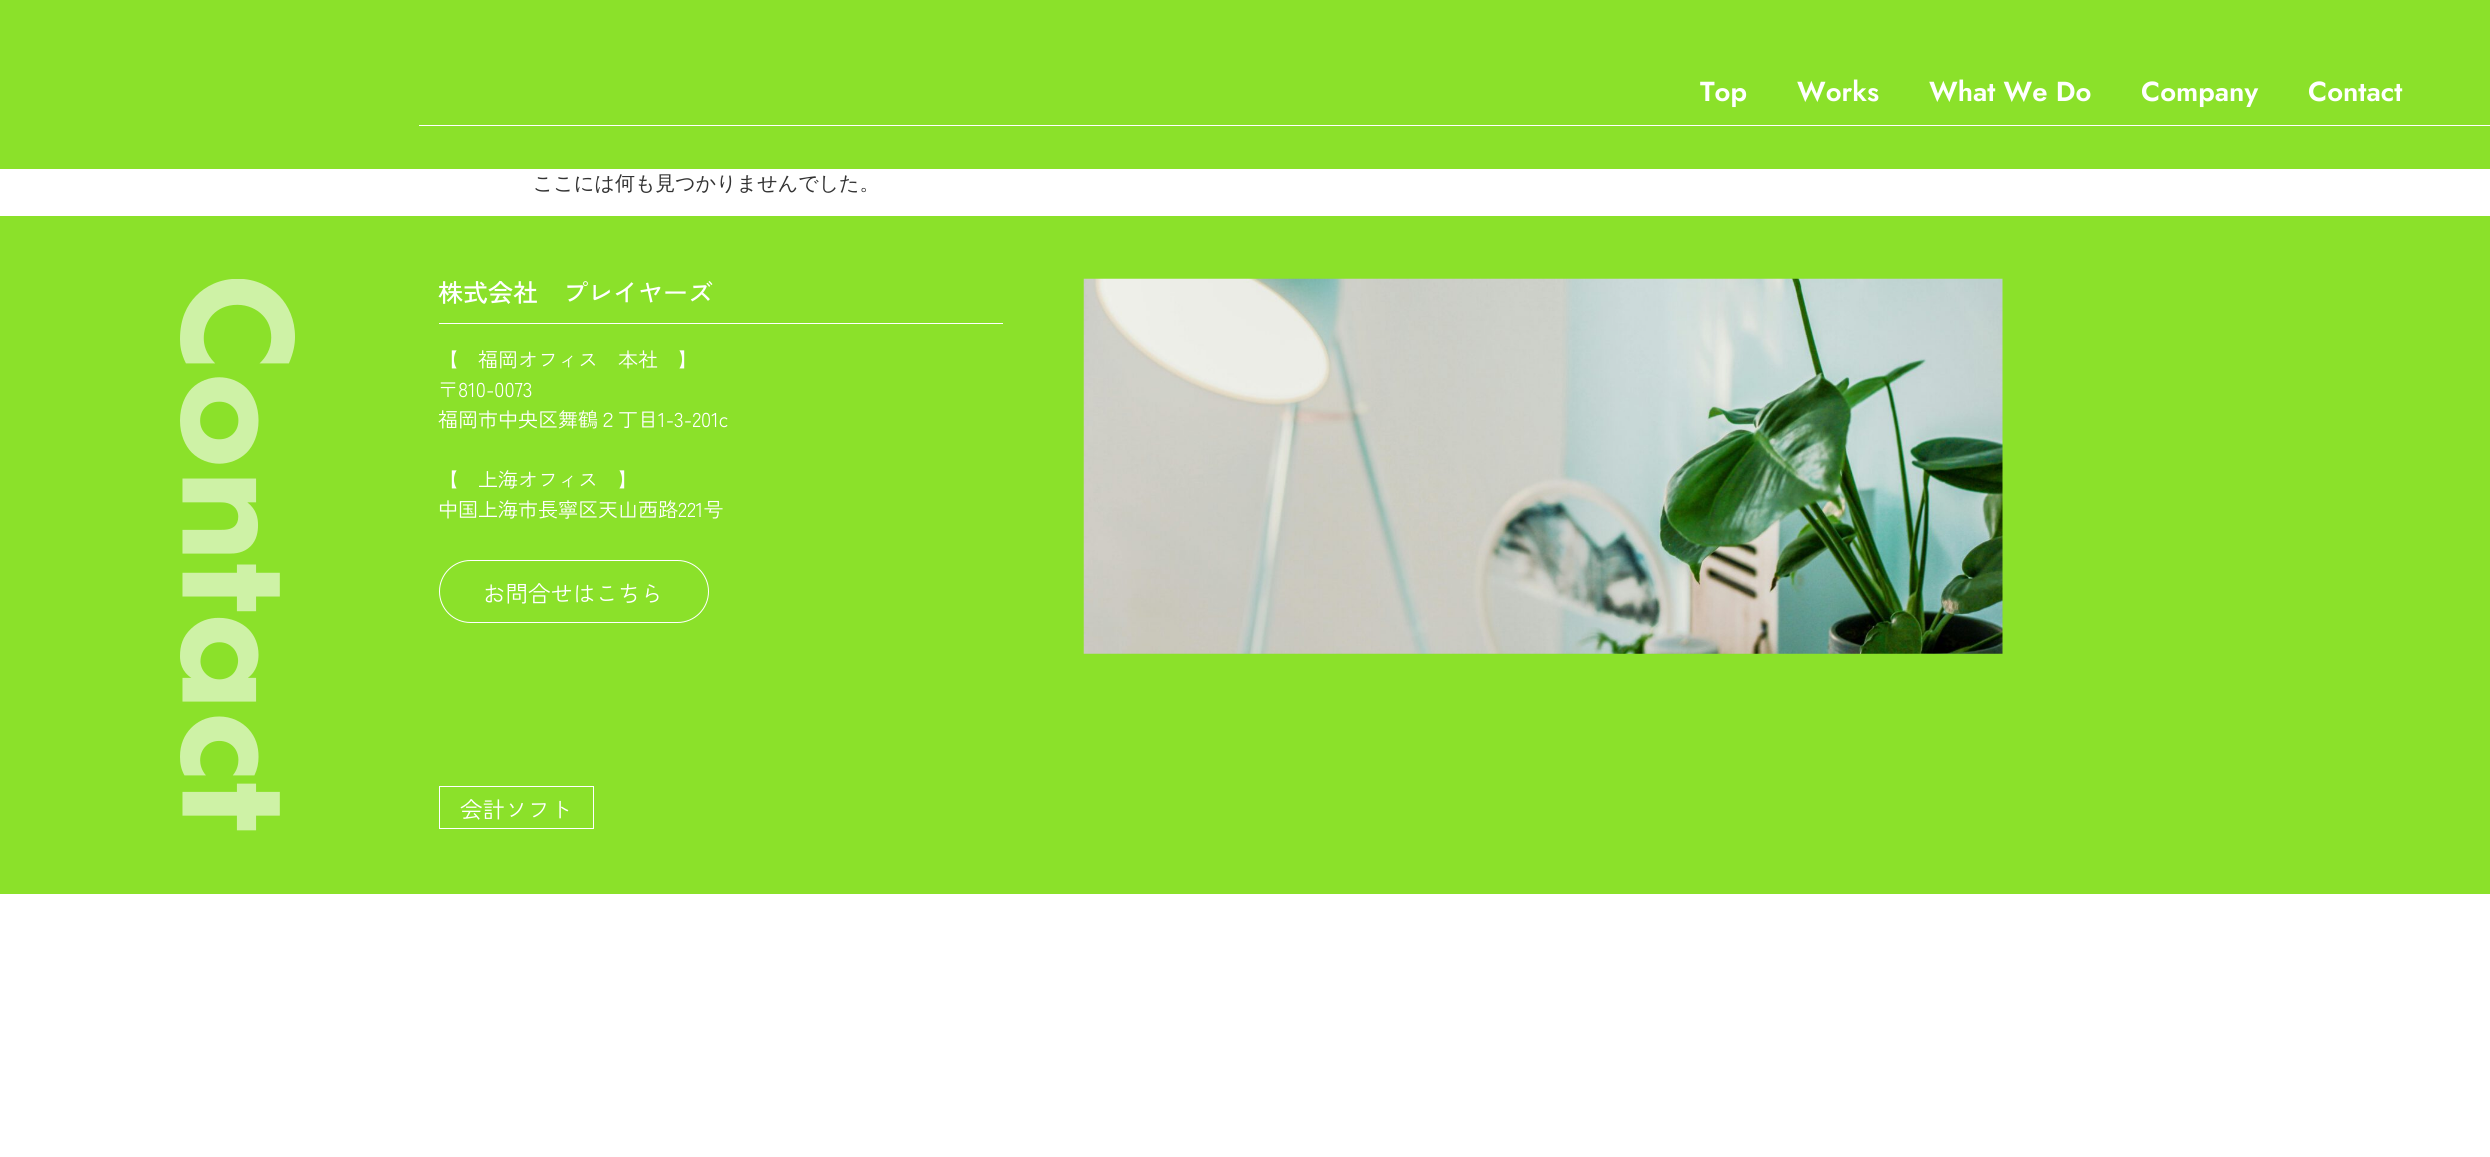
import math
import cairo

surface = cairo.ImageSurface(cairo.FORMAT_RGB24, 2490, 1157)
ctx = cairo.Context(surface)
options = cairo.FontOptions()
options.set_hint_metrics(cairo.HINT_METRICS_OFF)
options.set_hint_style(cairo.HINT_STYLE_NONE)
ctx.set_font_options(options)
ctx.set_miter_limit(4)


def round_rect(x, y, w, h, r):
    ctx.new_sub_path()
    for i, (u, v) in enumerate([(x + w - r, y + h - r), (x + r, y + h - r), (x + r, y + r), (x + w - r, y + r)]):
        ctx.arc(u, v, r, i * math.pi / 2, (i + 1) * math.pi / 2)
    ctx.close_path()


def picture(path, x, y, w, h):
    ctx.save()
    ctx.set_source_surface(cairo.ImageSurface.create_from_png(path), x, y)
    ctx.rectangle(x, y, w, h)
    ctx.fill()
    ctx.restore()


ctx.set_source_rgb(1, 1, 1)
ctx.paint()
ctx.set_source_rgb(0.545, 0.882, 0.165)
ctx.rectangle(0, 0, 2490, 169)
ctx.fill()
ctx.select_font_face("Jost SemiBold")
ctx.set_font_size(27.5)
ctx.set_source_rgb(1, 1, 1)
ctx.move_to(1700, 101)
ctx.show_text("Top")
ctx.move_to(1797, 101)
ctx.show_text("Works")
ctx.move_to(1929, 101)
ctx.show_text("What We Do")
ctx.move_to(2141, 101)
ctx.show_text("Company")
ctx.move_to(2308, 101)
ctx.show_text("Contact")
ctx.rectangle(419, 125, 2071, 1)
ctx.fill()
ctx.select_font_face("WenQuanYi Zen Hei Medium")
ctx.set_font_size(20)
ctx.set_source_rgb(0.2, 0.2, 0.2)
ctx.move_to(533, 190)
ctx.show_text("ここには何も見つかりませんでした。")
ctx.set_source_rgb(0.545, 0.882, 0.165)
ctx.rectangle(0, 216, 2490, 678)
ctx.fill()
picture("img1.png", 180, 279, 115, 552)
ctx.select_font_face("Zen Kaku Gothic New Medium")
ctx.set_font_size(25)
ctx.set_source_rgb(1, 1, 1)
ctx.move_to(438, 302)
ctx.show_text("株式会社　プレイヤーズ")
ctx.rectangle(439, 323, 564, 1)
ctx.fill()
ctx.select_font_face("Zen Kaku Gothic New")
ctx.set_font_size(20)
ctx.move_to(438, 367)
ctx.show_text("【　福岡オフィス　本社　】")
ctx.move_to(438, 397)
ctx.show_text("〒810-0073")
ctx.move_to(438, 427)
ctx.show_text("福岡市中央区舞鶴２丁目1-3-201c")
ctx.move_to(438, 487)
ctx.show_text("【　上海オフィス　】")
ctx.move_to(438, 517)
ctx.show_text("中国上海市長寧区天山西路221号")
round_rect(439.5, 560.5, 269, 62, 31)
ctx.set_line_width(1)
ctx.stroke()
ctx.set_font_size(22.5)
ctx.move_to(483, 602)
ctx.show_text("お問合せはこちら")
ctx.rectangle(439.5, 786.5, 154, 42)
ctx.stroke()
ctx.move_to(460, 818)
ctx.show_text("会計ソフト")
picture("img2.png", 1083, 278, 920, 376)
surface.write_to_png("page.png")
